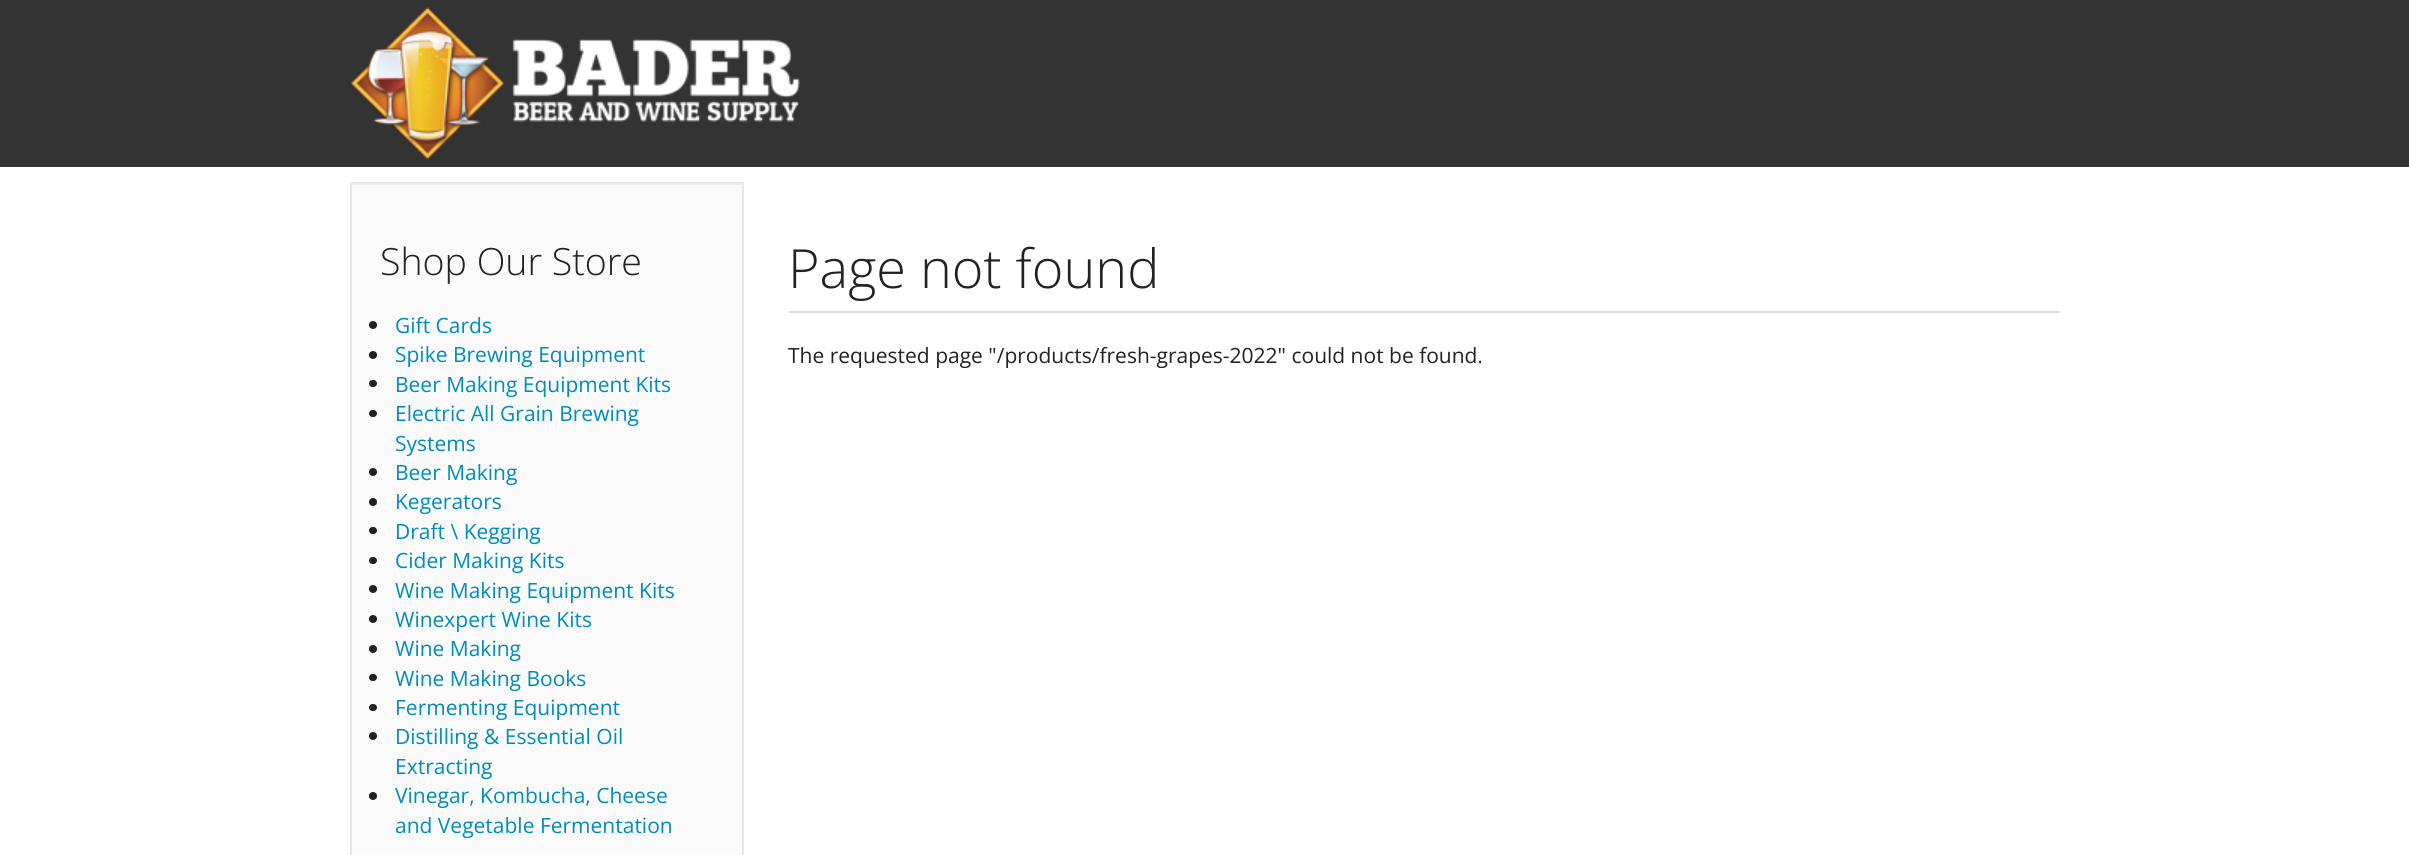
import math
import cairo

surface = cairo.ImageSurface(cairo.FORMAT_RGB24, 2409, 855)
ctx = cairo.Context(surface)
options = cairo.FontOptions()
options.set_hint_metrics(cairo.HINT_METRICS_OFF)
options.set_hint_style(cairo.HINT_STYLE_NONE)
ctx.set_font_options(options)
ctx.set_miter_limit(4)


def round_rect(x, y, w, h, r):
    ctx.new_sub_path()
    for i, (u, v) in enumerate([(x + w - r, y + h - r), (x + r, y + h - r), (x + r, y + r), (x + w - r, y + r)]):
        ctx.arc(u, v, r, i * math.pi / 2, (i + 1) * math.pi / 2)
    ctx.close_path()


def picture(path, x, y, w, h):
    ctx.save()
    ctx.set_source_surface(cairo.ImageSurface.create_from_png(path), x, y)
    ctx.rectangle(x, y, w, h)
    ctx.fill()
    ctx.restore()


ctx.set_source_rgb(1, 1, 1)
ctx.paint()
ctx.set_source_rgb(0.2, 0.2, 0.2)
ctx.rectangle(0, 0, 2409, 167)
ctx.fill()
picture("img1.png", 349, 6, 451, 155)
ctx.set_source_rgb(0.98, 0.98, 0.98)
ctx.rectangle(352, 185, 390, 670)
ctx.fill()
ctx.set_source_rgb(0.933, 0.933, 0.933)
ctx.rectangle(351, 184, 392, 1)
ctx.fill()
ctx.rectangle(351, 183, 392, 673)
ctx.set_source_rgb(0.91, 0.91, 0.91)
ctx.stroke()
ctx.select_font_face("Open Sans Light")
ctx.set_font_size(37.5)
ctx.set_source_rgb(0.133, 0.133, 0.133)
ctx.move_to(380, 275)
ctx.show_text("Shop Our Store")
ctx.new_path()
ctx.arc(373, 325, 4, 0, 2 * math.pi)
ctx.fill()
ctx.select_font_face("Open Sans")
ctx.set_font_size(21)
ctx.set_source_rgb(0, 0.549, 0.729)
ctx.move_to(395, 333)
ctx.show_text("Gift Cards")
ctx.set_source_rgb(0.133, 0.133, 0.133)
ctx.new_path()
ctx.arc(373, 355, 4, 0, 2 * math.pi)
ctx.fill()
ctx.set_source_rgb(0, 0.549, 0.729)
ctx.move_to(395, 362)
ctx.show_text("Spike Brewing Equipment")
ctx.set_source_rgb(0.133, 0.133, 0.133)
round_rect(369, 380, 8, 7, 3.5)
ctx.fill()
ctx.set_source_rgb(0, 0.549, 0.729)
ctx.move_to(395, 392)
ctx.show_text("Beer Making Equipment Kits")
ctx.set_source_rgb(0.133, 0.133, 0.133)
round_rect(369, 410, 8, 7, 3.5)
ctx.fill()
ctx.set_source_rgb(0, 0.549, 0.729)
ctx.move_to(395, 421)
ctx.show_text("Electric All Grain Brewing")
ctx.move_to(395, 451)
ctx.show_text("Systems")
ctx.set_source_rgb(0.133, 0.133, 0.133)
ctx.new_path()
ctx.arc(373, 472, 4, 0, 2 * math.pi)
ctx.fill()
ctx.set_source_rgb(0, 0.549, 0.729)
ctx.move_to(395, 480)
ctx.show_text("Beer Making")
ctx.set_source_rgb(0.133, 0.133, 0.133)
ctx.new_path()
ctx.arc(373, 502, 4, 0, 2 * math.pi)
ctx.fill()
ctx.set_source_rgb(0, 0.549, 0.729)
ctx.move_to(395, 509)
ctx.show_text("Kegerators")
ctx.set_source_rgb(0.133, 0.133, 0.133)
round_rect(369, 527, 8, 7, 3.5)
ctx.fill()
ctx.set_source_rgb(0, 0.549, 0.729)
ctx.move_to(395, 539)
ctx.show_text("Draft \\ Kegging")
ctx.set_source_rgb(0.133, 0.133, 0.133)
round_rect(369, 557, 8, 7, 3.5)
ctx.fill()
ctx.set_source_rgb(0, 0.549, 0.729)
ctx.move_to(395, 568)
ctx.show_text("Cider Making Kits")
ctx.set_source_rgb(0.133, 0.133, 0.133)
ctx.new_path()
ctx.arc(373, 589, 4, 0, 2 * math.pi)
ctx.fill()
ctx.set_source_rgb(0, 0.549, 0.729)
ctx.move_to(395, 598)
ctx.show_text("Wine Making Equipment Kits")
ctx.set_source_rgb(0.133, 0.133, 0.133)
ctx.new_path()
ctx.arc(373, 619, 4, 0, 2 * math.pi)
ctx.fill()
ctx.set_source_rgb(0, 0.549, 0.729)
ctx.move_to(395, 627)
ctx.show_text("Winexpert Wine Kits")
ctx.set_source_rgb(0.133, 0.133, 0.133)
ctx.new_path()
ctx.arc(373, 649, 4, 0, 2 * math.pi)
ctx.fill()
ctx.set_source_rgb(0, 0.549, 0.729)
ctx.move_to(395, 656)
ctx.show_text("Wine Making")
ctx.set_source_rgb(0.133, 0.133, 0.133)
round_rect(369, 674, 8, 7, 3.5)
ctx.fill()
ctx.set_source_rgb(0, 0.549, 0.729)
ctx.move_to(395, 686)
ctx.show_text("Wine Making Books")
ctx.set_source_rgb(0.133, 0.133, 0.133)
round_rect(369, 704, 8, 7, 3.5)
ctx.fill()
ctx.set_source_rgb(0, 0.549, 0.729)
ctx.move_to(395, 715)
ctx.show_text("Fermenting Equipment")
ctx.set_source_rgb(0.133, 0.133, 0.133)
ctx.new_path()
ctx.arc(373, 736, 4, 0, 2 * math.pi)
ctx.fill()
ctx.set_source_rgb(0, 0.549, 0.729)
ctx.move_to(395, 744)
ctx.show_text("Distilling & Essential Oil")
ctx.move_to(395, 774)
ctx.show_text("Extracting")
ctx.set_source_rgb(0.133, 0.133, 0.133)
ctx.new_path()
ctx.arc(373, 796, 4, 0, 2 * math.pi)
ctx.fill()
ctx.set_source_rgb(0, 0.549, 0.729)
ctx.move_to(395, 803)
ctx.show_text("Vinegar, Kombucha, Cheese")
ctx.move_to(395, 833)
ctx.show_text("and Vegetable Fermentation")
ctx.set_source_rgb(0.867, 0.867, 0.867)
ctx.rectangle(789, 311, 1271, 2)
ctx.fill()
ctx.select_font_face("Open Sans Light")
ctx.set_font_size(54)
ctx.set_source_rgb(0.133, 0.133, 0.133)
ctx.move_to(788, 288)
ctx.show_text("Page not found")
ctx.select_font_face("Open Sans")
ctx.set_font_size(21)
ctx.move_to(788, 363)
ctx.show_text("The requested page \"/products/fresh-grapes-2022\" could not be found.")
surface.write_to_png("page.png")
